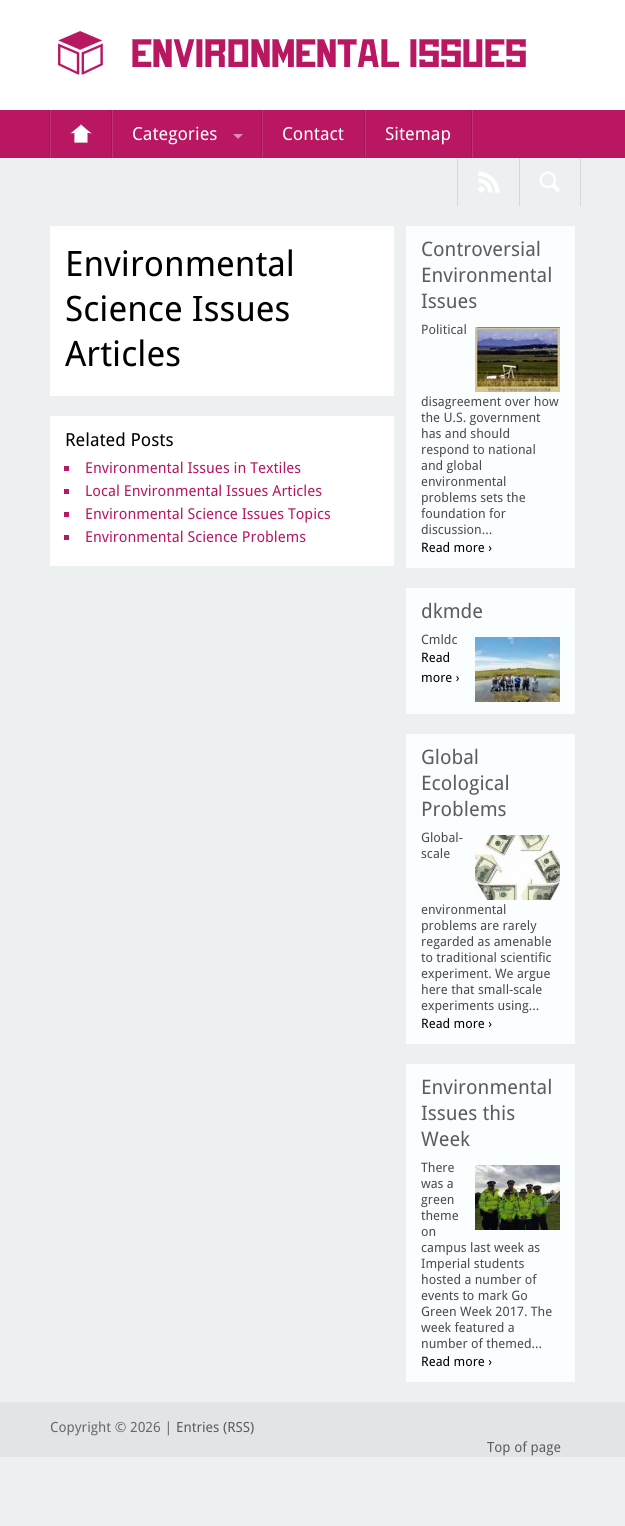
import math
import cairo

surface = cairo.ImageSurface(cairo.FORMAT_RGB24, 625, 1526)
ctx = cairo.Context(surface)
options = cairo.FontOptions()
options.set_hint_metrics(cairo.HINT_METRICS_OFF)
options.set_hint_style(cairo.HINT_STYLE_NONE)
ctx.set_font_options(options)
ctx.set_miter_limit(4)


def picture(path, x, y, w, h):
    ctx.save()
    ctx.set_source_surface(cairo.ImageSurface.create_from_png(path), x, y)
    ctx.rectangle(x, y, w, h)
    ctx.fill()
    ctx.restore()


ctx.set_source_rgb(0.925, 0.941, 0.945)
ctx.paint()
ctx.set_source_rgb(1, 1, 1)
ctx.rectangle(0, 0, 625, 110)
ctx.fill()
picture("img1.png", 58, 31, 468, 44)
ctx.set_source_rgb(0.729, 0.09, 0.388)
ctx.rectangle(0, 110, 625, 48)
ctx.fill()
ctx.set_source_rgb(0.655, 0.082, 0.349)
ctx.rectangle(49, 110, 1, 48)
ctx.fill()
ctx.set_source_rgb(0.761, 0.192, 0.455)
ctx.rectangle(50, 110, 1, 48)
ctx.fill()
ctx.rectangle(112, 110, 1, 48)
ctx.fill()
ctx.set_source_rgb(0.655, 0.082, 0.349)
ctx.rectangle(111, 110, 1, 48)
ctx.fill()
picture("img2.png", 70, 124, 22, 19)
ctx.set_source_rgb(0.761, 0.192, 0.455)
ctx.rectangle(262, 110, 1, 48)
ctx.fill()
ctx.set_source_rgb(0.655, 0.082, 0.349)
ctx.rectangle(261, 110, 1, 48)
ctx.fill()
ctx.select_font_face("Droid Sans")
ctx.set_font_size(18)
ctx.set_source_rgb(1, 1, 1)
ctx.move_to(132, 140)
ctx.show_text("Categories")
ctx.set_source_rgb(0.867, 0.545, 0.694)
ctx.new_path()
ctx.move_to(233, 134)
ctx.line_to(243, 134)
ctx.line_to(238, 139)
ctx.close_path()
ctx.fill()
ctx.set_source_rgb(0.761, 0.192, 0.455)
ctx.rectangle(365, 110, 1, 48)
ctx.fill()
ctx.set_source_rgb(0.655, 0.082, 0.349)
ctx.rectangle(364, 110, 1, 48)
ctx.fill()
ctx.set_source_rgb(1, 1, 1)
ctx.move_to(282, 140)
ctx.show_text("Contact")
ctx.set_source_rgb(0.761, 0.192, 0.455)
ctx.rectangle(472, 110, 1, 48)
ctx.fill()
ctx.set_source_rgb(0.655, 0.082, 0.349)
ctx.rectangle(471, 110, 1, 48)
ctx.fill()
ctx.set_source_rgb(1, 1, 1)
ctx.move_to(385, 140)
ctx.show_text("Sitemap")
ctx.set_source_rgb(0.831, 0.847, 0.851)
ctx.rectangle(457, 158, 1, 48)
ctx.fill()
ctx.rectangle(519, 158, 1, 48)
ctx.fill()
picture("img3.png", 478, 171, 22, 22)
ctx.rectangle(580, 158, 1, 48)
ctx.fill()
picture("img4.png", 539, 171, 22, 22)
ctx.set_source_rgb(1, 1, 1)
ctx.rectangle(50, 226, 344, 170)
ctx.fill()
ctx.set_font_size(35)
ctx.set_source_rgb(0, 0, 0)
ctx.move_to(65, 276)
ctx.show_text("Environmental")
ctx.move_to(65, 321)
ctx.show_text("Science Issues")
ctx.move_to(65, 366)
ctx.show_text("Articles")
ctx.set_source_rgb(1, 1, 1)
ctx.rectangle(50, 416, 344, 150)
ctx.fill()
ctx.set_font_size(18)
ctx.set_source_rgb(0, 0, 0)
ctx.move_to(65, 446)
ctx.show_text("Related Posts")
ctx.set_source_rgb(0.729, 0.09, 0.388)
ctx.rectangle(64, 466, 5, 5)
ctx.fill()
ctx.set_font_size(15)
ctx.move_to(85, 473)
ctx.show_text("Environmental Issues in Textiles")
ctx.rectangle(64, 489, 5, 5)
ctx.fill()
ctx.move_to(85, 496)
ctx.show_text("Local Environmental Issues Articles")
ctx.rectangle(64, 512, 5, 5)
ctx.fill()
ctx.move_to(85, 519)
ctx.show_text("Environmental Science Issues Topics")
ctx.rectangle(64, 535, 5, 5)
ctx.fill()
ctx.move_to(85, 542)
ctx.show_text("Environmental Science Problems")
ctx.set_source_rgb(0.98, 0.996, 1)
ctx.rectangle(406, 226, 169, 342)
ctx.fill()
ctx.set_font_size(20)
ctx.set_source_rgb(0.365, 0.365, 0.369)
ctx.move_to(421, 256)
ctx.show_text("Controversial")
ctx.move_to(421, 282)
ctx.show_text("Environmental")
ctx.move_to(421, 308)
ctx.show_text("Issues")
ctx.set_font_size(13)
ctx.set_source_rgb(0.294, 0.294, 0.298)
ctx.move_to(421, 334)
ctx.show_text("Political")
ctx.move_to(421, 406)
ctx.show_text("disagreement over how")
ctx.move_to(421, 422)
ctx.show_text("the U.S. government")
ctx.move_to(421, 438)
ctx.show_text("has and should")
ctx.move_to(421, 454)
ctx.show_text("respond to national")
ctx.move_to(421, 470)
ctx.show_text("and global")
ctx.move_to(421, 486)
ctx.show_text("environmental")
ctx.move_to(421, 502)
ctx.show_text("problems sets the")
ctx.move_to(421, 518)
ctx.show_text("foundation for")
ctx.move_to(421, 534)
ctx.show_text("discussion...")
picture("img5.png", 475, 327, 85, 65)
ctx.set_source_rgb(0, 0, 0)
ctx.move_to(421, 552)
ctx.show_text("Read more ›")
ctx.set_source_rgb(0.98, 0.996, 1)
ctx.rectangle(406, 588, 169, 126)
ctx.fill()
ctx.set_font_size(20)
ctx.set_source_rgb(0.365, 0.365, 0.369)
ctx.move_to(421, 618)
ctx.show_text("dkmde")
ctx.set_font_size(13)
ctx.set_source_rgb(0.294, 0.294, 0.298)
ctx.move_to(421, 644)
ctx.show_text("Cmldc")
picture("img6.png", 475, 637, 85, 65)
ctx.set_source_rgb(0, 0, 0)
ctx.move_to(421, 662)
ctx.show_text("Read")
ctx.move_to(421, 682)
ctx.show_text("more ›")
ctx.set_source_rgb(0.98, 0.996, 1)
ctx.rectangle(406, 734, 169, 310)
ctx.fill()
ctx.set_font_size(20)
ctx.set_source_rgb(0.365, 0.365, 0.369)
ctx.move_to(421, 764)
ctx.show_text("Global")
ctx.move_to(421, 790)
ctx.show_text("Ecological")
ctx.move_to(421, 816)
ctx.show_text("Problems")
ctx.set_font_size(13)
ctx.set_source_rgb(0.294, 0.294, 0.298)
ctx.move_to(421, 842)
ctx.show_text("Global-")
ctx.move_to(421, 858)
ctx.show_text("scale")
ctx.move_to(421, 914)
ctx.show_text("environmental")
ctx.move_to(421, 930)
ctx.show_text("problems are rarely")
ctx.move_to(421, 946)
ctx.show_text("regarded as amenable")
ctx.move_to(421, 962)
ctx.show_text("to traditional scientific")
ctx.move_to(421, 978)
ctx.show_text("experiment. We argue")
ctx.move_to(421, 994)
ctx.show_text("here that small-scale")
ctx.move_to(421, 1010)
ctx.show_text("experiments using...")
picture("img7.png", 475, 835, 85, 65)
ctx.set_source_rgb(0, 0, 0)
ctx.move_to(421, 1028)
ctx.show_text("Read more ›")
ctx.set_source_rgb(0.98, 0.996, 1)
ctx.rectangle(406, 1064, 169, 318)
ctx.fill()
ctx.set_font_size(20)
ctx.set_source_rgb(0.365, 0.365, 0.369)
ctx.move_to(421, 1094)
ctx.show_text("Environmental")
ctx.move_to(421, 1120)
ctx.show_text("Issues this")
ctx.move_to(421, 1146)
ctx.show_text("Week")
ctx.set_font_size(13)
ctx.set_source_rgb(0.294, 0.294, 0.298)
ctx.move_to(421, 1172)
ctx.show_text("There")
ctx.move_to(421, 1188)
ctx.show_text("was a")
ctx.move_to(421, 1204)
ctx.show_text("green")
ctx.move_to(421, 1220)
ctx.show_text("theme")
ctx.move_to(421, 1236)
ctx.show_text("on")
ctx.move_to(421, 1252)
ctx.show_text("campus last week as")
ctx.move_to(421, 1268)
ctx.show_text("Imperial students")
ctx.move_to(421, 1284)
ctx.show_text("hosted a number of")
ctx.move_to(421, 1300)
ctx.show_text("events to mark Go")
ctx.move_to(421, 1316)
ctx.show_text("Green Week 2017. The")
ctx.move_to(421, 1332)
ctx.show_text("week featured a")
ctx.move_to(421, 1348)
ctx.show_text("number of themed...")
picture("img8.png", 475, 1165, 85, 65)
ctx.set_source_rgb(0, 0, 0)
ctx.move_to(421, 1366)
ctx.show_text("Read more ›")
ctx.set_source_rgb(0.882, 0.898, 0.902)
ctx.rectangle(0, 1402, 625, 55)
ctx.fill()
ctx.set_font_size(14)
ctx.set_source_rgb(0.412, 0.412, 0.412)
ctx.move_to(50, 1432)
ctx.show_text("Copyright © 2026 |")
ctx.set_source_rgb(0.365, 0.365, 0.369)
ctx.move_to(176, 1432)
ctx.show_text("Entries (RSS)")
ctx.move_to(487, 1452)
ctx.show_text("Top of page")
surface.write_to_png("page.png")
